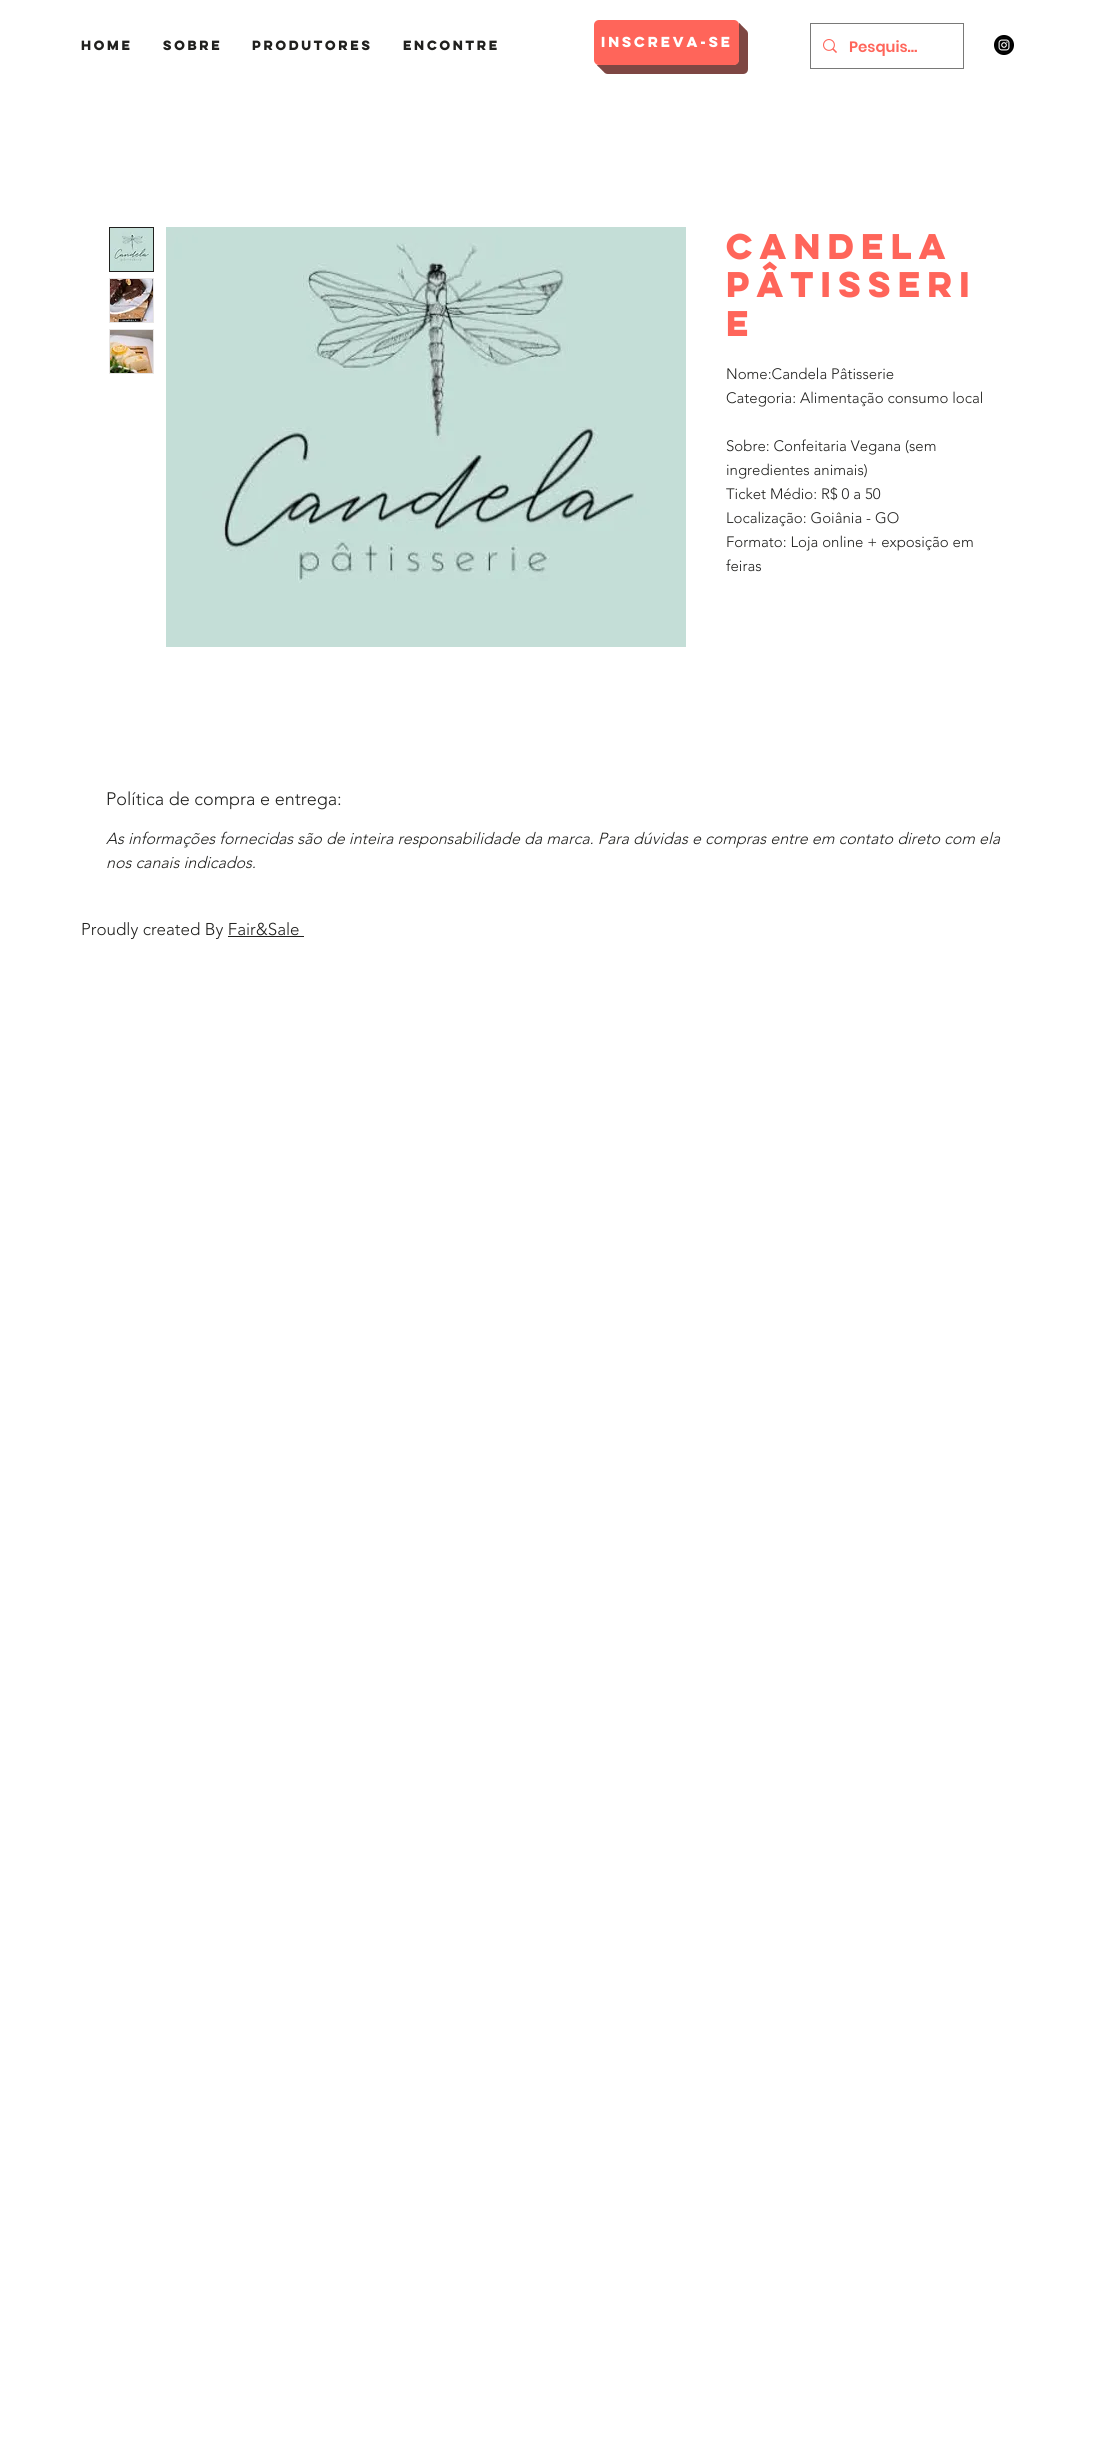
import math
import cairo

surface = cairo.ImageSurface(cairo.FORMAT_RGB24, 1112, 2439)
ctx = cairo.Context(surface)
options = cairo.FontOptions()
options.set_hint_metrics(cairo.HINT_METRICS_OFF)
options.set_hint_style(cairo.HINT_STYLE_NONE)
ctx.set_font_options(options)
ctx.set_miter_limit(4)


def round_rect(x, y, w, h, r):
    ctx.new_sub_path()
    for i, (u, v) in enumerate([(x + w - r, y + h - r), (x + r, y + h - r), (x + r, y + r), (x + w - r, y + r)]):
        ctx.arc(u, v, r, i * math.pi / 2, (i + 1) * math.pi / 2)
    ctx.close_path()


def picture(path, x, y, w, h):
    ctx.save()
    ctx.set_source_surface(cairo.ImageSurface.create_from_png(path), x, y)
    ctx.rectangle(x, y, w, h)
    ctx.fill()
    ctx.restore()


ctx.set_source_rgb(1, 1, 1)
ctx.paint()
ctx.select_font_face("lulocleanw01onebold", cairo.FONT_SLANT_NORMAL, cairo.FONT_WEIGHT_BOLD)
ctx.set_font_size(12)
ctx.set_source_rgb(0.125, 0.125, 0.118)
ctx.move_to(81, 50)
ctx.show_text("Home")
ctx.move_to(163, 50)
ctx.show_text("Sobre")
ctx.move_to(252, 50)
ctx.show_text("Produtores")
ctx.move_to(403, 50)
ctx.show_text("Encontre")
ctx.set_source_rgb(0.494, 0.278, 0.263)
ctx.new_path()
ctx.move_to(603, 65)
ctx.line_to(603, 69)
ctx.curve_to(603, 72, 605, 74, 608, 74)
ctx.line_to(743, 74)
ctx.curve_to(746, 74, 748, 72, 748, 69)
ctx.line_to(748, 34)
ctx.curve_to(748, 31, 746, 29, 743, 29)
ctx.line_to(739, 29)
ctx.line_to(739, 60)
ctx.curve_to(739, 63, 737, 65, 734, 65)
ctx.close_path()
ctx.fill()
ctx.new_path()
ctx.move_to(601, 65)
ctx.line_to(601, 67)
ctx.curve_to(601, 70, 603, 72, 606, 72)
ctx.line_to(741, 72)
ctx.curve_to(744, 72, 746, 70, 746, 67)
ctx.line_to(746, 32)
ctx.curve_to(746, 29, 744, 27, 741, 27)
ctx.line_to(739, 27)
ctx.line_to(739, 60)
ctx.curve_to(739, 63, 737, 65, 734, 65)
ctx.close_path()
ctx.fill()
ctx.new_path()
ctx.move_to(599, 65)
ctx.curve_to(599, 68, 601, 70, 604, 70)
ctx.line_to(739, 70)
ctx.curve_to(742, 70, 744, 68, 744, 65)
ctx.line_to(744, 30)
ctx.curve_to(744, 27, 742, 25, 739, 25)
ctx.line_to(739, 60)
ctx.curve_to(739, 63, 737, 65, 734, 65)
ctx.close_path()
ctx.fill()
ctx.new_path()
ctx.move_to(597, 65)
ctx.curve_to(598, 67, 600, 68, 602, 68)
ctx.line_to(737, 68)
ctx.curve_to(740, 68, 742, 66, 742, 63)
ctx.line_to(742, 28)
ctx.curve_to(742, 26, 741, 24, 739, 23)
ctx.line_to(739, 61)
ctx.curve_to(737, 69, 718, 65, 712, 65)
ctx.close_path()
ctx.fill()
ctx.new_path()
ctx.move_to(596, 64)
ctx.curve_to(597, 65, 598, 66, 600, 66)
ctx.line_to(735, 66)
ctx.curve_to(738, 66, 740, 64, 740, 61)
ctx.line_to(740, 26)
ctx.curve_to(740, 24, 739, 23, 738, 22)
ctx.curve_to(739, 23, 739, 24, 739, 25)
ctx.line_to(739, 60)
ctx.curve_to(739, 63, 737, 65, 734, 65)
ctx.line_to(599, 65)
ctx.curve_to(598, 65, 597, 65, 596, 64)
ctx.close_path()
ctx.fill()
ctx.set_source_rgb(1, 0.396, 0.353)
round_rect(594, 20, 145, 45, 5)
ctx.fill()
ctx.set_font_size(13)
ctx.set_source_rgb(1, 1, 1)
ctx.move_to(601, 47)
ctx.show_text("Inscreva-se")
ctx.rectangle(810.5, 23.5, 153, 45)
ctx.set_source_rgb(0.475, 0.475, 0.471)
ctx.set_line_width(1)
ctx.stroke()
picture("img1.png", 823, 39, 14, 14)
ctx.select_font_face("Poppins SemiBold")
ctx.set_font_size(15)
ctx.set_source_rgb(1, 0.396, 0.353)
ctx.move_to(849, 52)
ctx.show_text("Pesquis…")
picture("img2.png", 994, 35, 20, 20)
ctx.rectangle(109.5, 227.5, 44, 44)
ctx.set_source_rgb(0.125, 0.125, 0.118)
ctx.stroke()
picture("img3.png", 110, 228, 43, 43)
ctx.set_source_rgb(0.91, 0.902, 0.902)
ctx.rectangle(109, 278, 45, 45)
ctx.fill()
picture("img4.png", 110, 279, 43, 43)
ctx.rectangle(109, 329, 45, 45)
ctx.fill()
picture("img5.png", 110, 330, 43, 43)
picture("img6.png", 166, 227, 520, 420)
ctx.select_font_face("lulocleanw01onebold", cairo.FONT_SLANT_NORMAL, cairo.FONT_WEIGHT_BOLD)
ctx.set_font_size(32)
ctx.set_source_rgb(1, 0.396, 0.353)
ctx.move_to(726, 259)
ctx.show_text("Candela")
ctx.move_to(726, 297)
ctx.show_text("Pâtisseri")
ctx.move_to(726, 336)
ctx.show_text("e")
ctx.select_font_face("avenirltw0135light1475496 Light")
ctx.set_font_size(15)
ctx.set_source_rgb(0.125, 0.125, 0.118)
ctx.move_to(726, 379)
ctx.show_text("Nome:Candela Pâtisserie")
ctx.move_to(726, 403)
ctx.show_text("Categoria: Alimentação consumo local")
ctx.move_to(726, 451)
ctx.show_text("Sobre: Confeitaria Vegana (sem")
ctx.move_to(726, 475)
ctx.show_text("ingredientes animais)")
ctx.move_to(726, 499)
ctx.show_text("Ticket Médio: R$ 0 a 50")
ctx.move_to(726, 523)
ctx.show_text("Localização: Goiânia - GO")
ctx.move_to(726, 547)
ctx.show_text("Formato: Loja online + exposição em")
ctx.move_to(726, 571)
ctx.show_text("feiras")
ctx.set_font_size(18)
ctx.move_to(106, 805)
ctx.show_text("Política de compra e entrega:")
ctx.select_font_face("avenirltw0135light1475496 Light", cairo.FONT_SLANT_ITALIC)
ctx.set_font_size(16)
ctx.move_to(106, 844)
ctx.show_text("As informações fornecidas são de inteira responsabilidade da marca. Para dúvidas e compras entre em contato direto com ela")
ctx.move_to(106, 868)
ctx.show_text("nos canais indicados.")
ctx.select_font_face("avenirltw0135light1475496 Light")
ctx.set_font_size(17)
ctx.move_to(81, 935)
ctx.show_text("Proudly created By Fair&Sale")
ctx.rectangle(228, 936, 76, 1)
ctx.fill()
surface.write_to_png("page.png")
